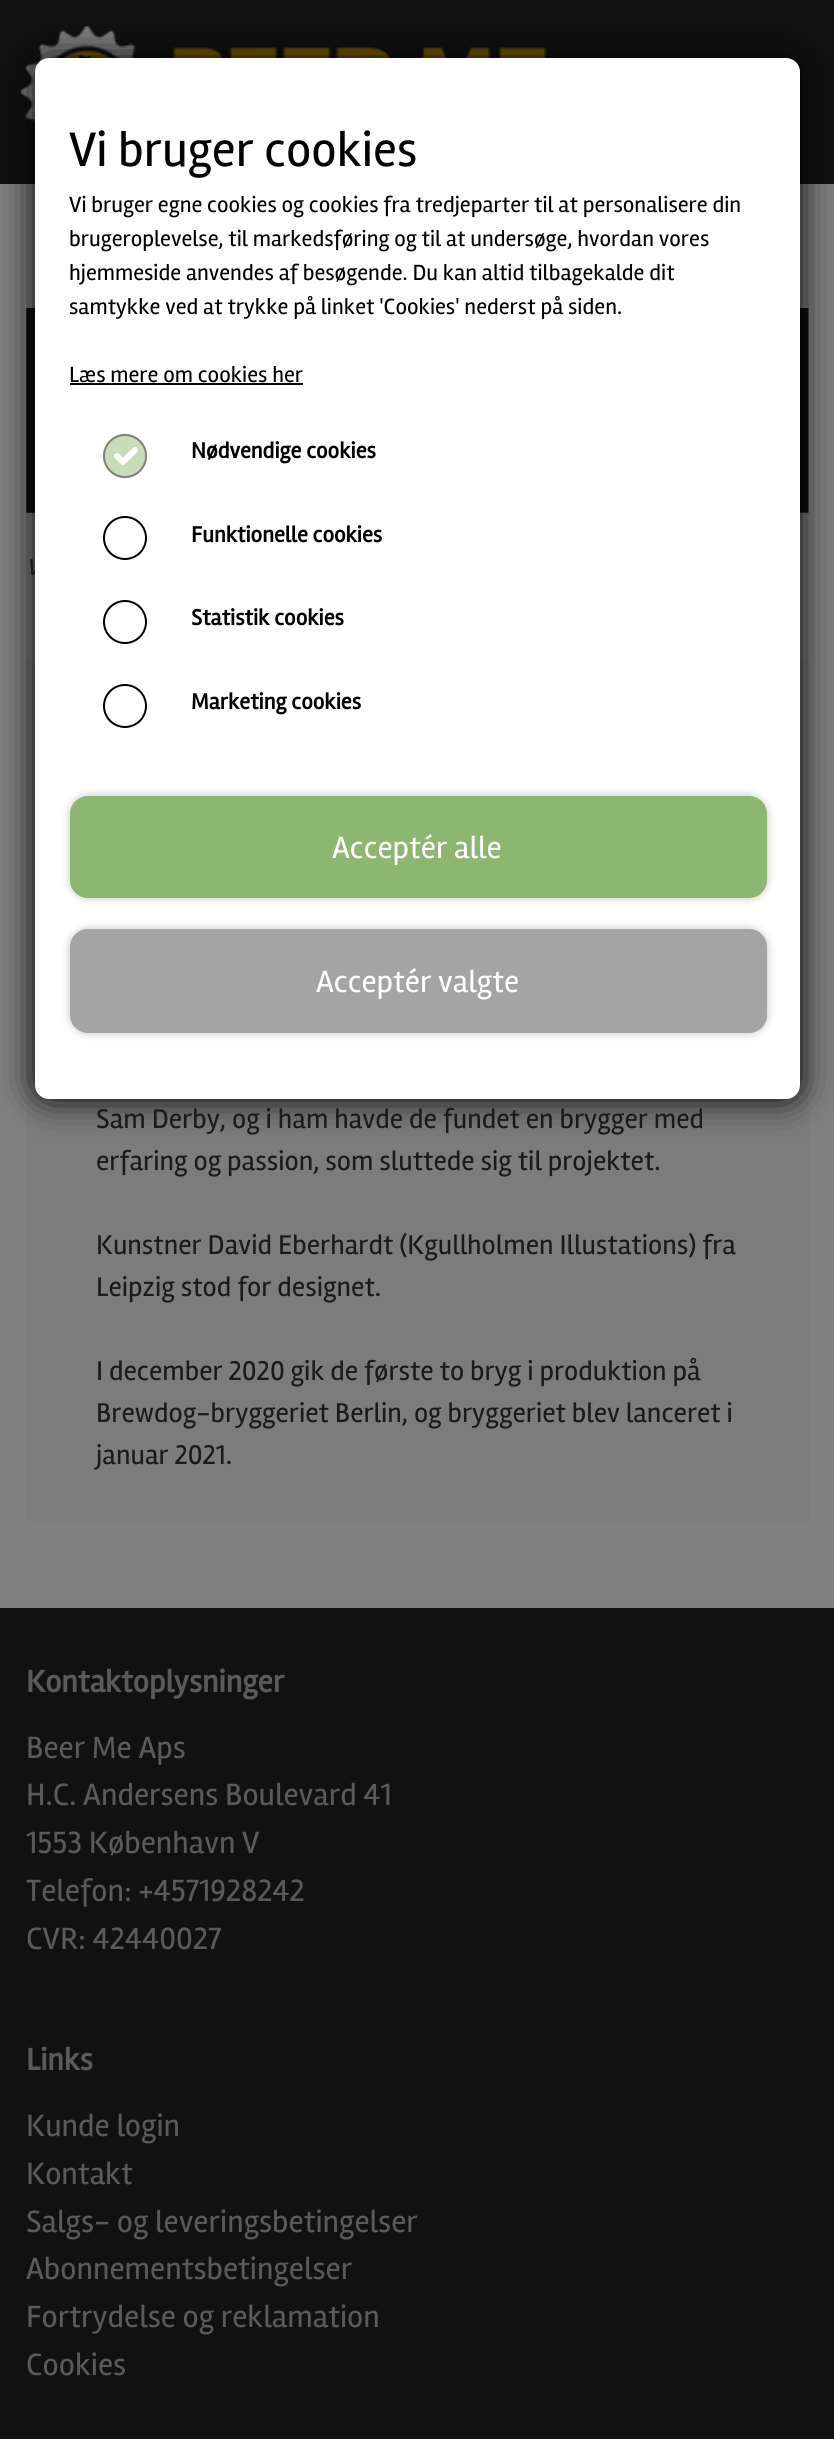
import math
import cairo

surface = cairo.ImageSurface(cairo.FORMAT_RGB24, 834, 2439)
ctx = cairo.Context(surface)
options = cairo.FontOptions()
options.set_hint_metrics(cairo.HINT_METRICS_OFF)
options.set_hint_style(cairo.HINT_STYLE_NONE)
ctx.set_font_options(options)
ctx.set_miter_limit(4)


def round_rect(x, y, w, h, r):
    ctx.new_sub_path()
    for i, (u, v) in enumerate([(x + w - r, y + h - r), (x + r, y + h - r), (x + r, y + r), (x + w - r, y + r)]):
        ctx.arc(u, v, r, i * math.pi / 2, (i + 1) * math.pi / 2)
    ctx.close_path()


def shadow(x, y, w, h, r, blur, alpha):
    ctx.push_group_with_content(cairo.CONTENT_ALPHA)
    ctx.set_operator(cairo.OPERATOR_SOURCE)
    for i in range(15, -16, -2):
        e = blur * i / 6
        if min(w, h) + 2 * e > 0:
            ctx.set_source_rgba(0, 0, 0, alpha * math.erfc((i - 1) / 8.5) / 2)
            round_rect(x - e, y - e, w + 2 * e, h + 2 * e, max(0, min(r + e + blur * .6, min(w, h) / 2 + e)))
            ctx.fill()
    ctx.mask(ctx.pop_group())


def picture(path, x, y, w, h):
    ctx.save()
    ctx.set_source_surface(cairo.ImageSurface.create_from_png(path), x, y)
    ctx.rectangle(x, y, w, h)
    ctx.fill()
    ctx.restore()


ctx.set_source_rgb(0.067, 0.067, 0.067)
ctx.paint()
picture("img1.png", 21, 26, 525, 96)
ctx.set_source_rgb(0.502, 0.502, 0.502)
ctx.rectangle(0, 184, 834, 1424)
ctx.fill()
picture("img2.png", 26, 308, 783, 205)
ctx.set_source_rgb(0.486, 0.486, 0.486)
ctx.rectangle(26, 660, 783, 861)
ctx.fill()
ctx.set_source_rgb(0, 0, 0)
shadow(35, 58, 765, 1041, 14, 17.5, 1)
ctx.select_font_face("Rambla", cairo.FONT_SLANT_ITALIC)
ctx.set_font_size(24)
ctx.set_source_rgb(0.102, 0.102, 0.102)
ctx.move_to(26, 575)
ctx.show_text("V")
ctx.set_source_rgb(1, 1, 1)
round_rect(35, 58, 765, 1041, 14)
ctx.fill()
ctx.select_font_face("Rambla")
ctx.set_font_size(50)
ctx.set_source_rgb(0, 0, 0)
ctx.move_to(69, 166)
ctx.show_text("Vi bruger cookies")
ctx.set_font_size(22.75)
ctx.move_to(69, 212)
ctx.show_text("Vi bruger egne cookies og cookies fra tredjeparter til at personalisere din")
ctx.move_to(69, 246)
ctx.show_text("brugeroplevelse, til markedsføring og til at undersøge, hvordan vores")
ctx.move_to(69, 280)
ctx.show_text("hjemmeside anvendes af besøgende. Du kan altid tilbagekalde dit")
ctx.move_to(69, 314)
ctx.show_text("samtykke ved at trykke på linket 'Cookies' nederst på siden.")
ctx.move_to(69, 382)
ctx.show_text("Læs mere om cookies her")
ctx.rectangle(70, 383, 233, 2)
ctx.fill()
ctx.set_source_rgb(0.784, 0.863, 0.729)
ctx.arc(125, 456, 22, 0, 2 * math.pi)
ctx.fill()
ctx.new_path()
ctx.move_to(117, 456)
ctx.line_to(123, 462)
ctx.line_to(135, 450)
ctx.set_source_rgb(1, 1, 1)
ctx.set_line_width(6)
ctx.set_line_cap(cairo.LINE_CAP_ROUND)
ctx.set_line_join(cairo.LINE_JOIN_ROUND)
ctx.stroke()
ctx.arc(125, 456, 21, 0, 2 * math.pi)
ctx.set_source_rgb(0.502, 0.502, 0.502)
ctx.set_line_width(2)
ctx.set_line_cap(cairo.LINE_CAP_BUTT)
ctx.set_line_join(cairo.LINE_JOIN_MITER)
ctx.stroke()
ctx.select_font_face("Rambla", cairo.FONT_SLANT_NORMAL, cairo.FONT_WEIGHT_BOLD)
ctx.set_source_rgb(0, 0, 0)
ctx.move_to(191, 458)
ctx.show_text("Nødvendige cookies")
ctx.new_path()
ctx.arc(125, 538, 21, 0, 2 * math.pi)
ctx.stroke()
ctx.move_to(191, 542)
ctx.show_text("Funktionelle cookies")
ctx.new_path()
ctx.arc(125, 622, 21, 0, 2 * math.pi)
ctx.stroke()
ctx.move_to(191, 625)
ctx.show_text("Statistik cookies")
ctx.new_path()
ctx.arc(125, 706, 21, 0, 2 * math.pi)
ctx.stroke()
ctx.move_to(191, 709)
ctx.show_text("Marketing cookies")
ctx.set_source_rgb(0, 0, 0)
shadow(70, 796, 697, 102, 18, 4.5, 0.25)
ctx.set_source_rgb(0.553, 0.714, 0.443)
round_rect(70, 796, 697, 102, 18)
ctx.fill()
ctx.select_font_face("Rambla")
ctx.set_font_size(31.8)
ctx.set_source_rgb(1, 1, 1)
ctx.move_to(332, 858)
ctx.show_text("Acceptér alle")
ctx.set_source_rgb(0, 0, 0)
shadow(70, 929, 697, 104, 18, 4.5, 0.25)
ctx.set_source_rgb(0.643, 0.643, 0.643)
round_rect(70, 929, 697, 104, 18)
ctx.fill()
ctx.set_source_rgb(1, 1, 1)
ctx.move_to(316, 992)
ctx.show_text("Acceptér valgte")
ctx.set_font_size(28)
ctx.set_source_rgb(0.102, 0.102, 0.102)
ctx.move_to(96, 1128)
ctx.show_text("Sam Derby, og i ham havde de fundet en brygger med")
ctx.move_to(96, 1170)
ctx.show_text("erfaring og passion, som sluttede sig til projektet.")
ctx.move_to(96, 1254)
ctx.show_text("Kunstner David Eberhardt (Kgullholmen Illustations) fra")
ctx.move_to(96, 1296)
ctx.show_text("Leipzig stod for designet.")
ctx.move_to(96, 1380)
ctx.show_text("I december 2020 gik de første to bryg i produktion på")
ctx.move_to(96, 1422)
ctx.show_text("Brewdog-bryggeriet Berlin, og bryggeriet blev lanceret i")
ctx.move_to(96, 1464)
ctx.show_text("januar 2021.")
ctx.select_font_face("Rambla", cairo.FONT_SLANT_NORMAL, cairo.FONT_WEIGHT_BOLD)
ctx.set_font_size(31.8)
ctx.set_source_rgb(0.353, 0.353, 0.353)
ctx.move_to(26, 1692)
ctx.show_text("Kontaktoplysninger")
ctx.select_font_face("Rambla")
ctx.move_to(26, 1758)
ctx.show_text("Beer Me Aps")
ctx.move_to(26, 1805)
ctx.show_text("H.C. Andersens Boulevard 41")
ctx.move_to(26, 1853)
ctx.show_text("1553 København V")
ctx.move_to(26, 1901)
ctx.show_text("Telefon: +4571928242")
ctx.move_to(26, 1949)
ctx.show_text("CVR: 42440027")
ctx.select_font_face("Rambla", cairo.FONT_SLANT_NORMAL, cairo.FONT_WEIGHT_BOLD)
ctx.move_to(26, 2070)
ctx.show_text("Links")
ctx.select_font_face("Rambla")
ctx.move_to(26, 2136)
ctx.show_text("Kunde login")
ctx.move_to(26, 2184)
ctx.show_text("Kontakt")
ctx.move_to(26, 2232)
ctx.show_text("Salgs- og leveringsbetingelser")
ctx.move_to(26, 2279)
ctx.show_text("Abonnementsbetingelser")
ctx.move_to(26, 2327)
ctx.show_text("Fortrydelse og reklamation")
ctx.move_to(26, 2375)
ctx.show_text("Cookies")
surface.write_to_png("page.png")
